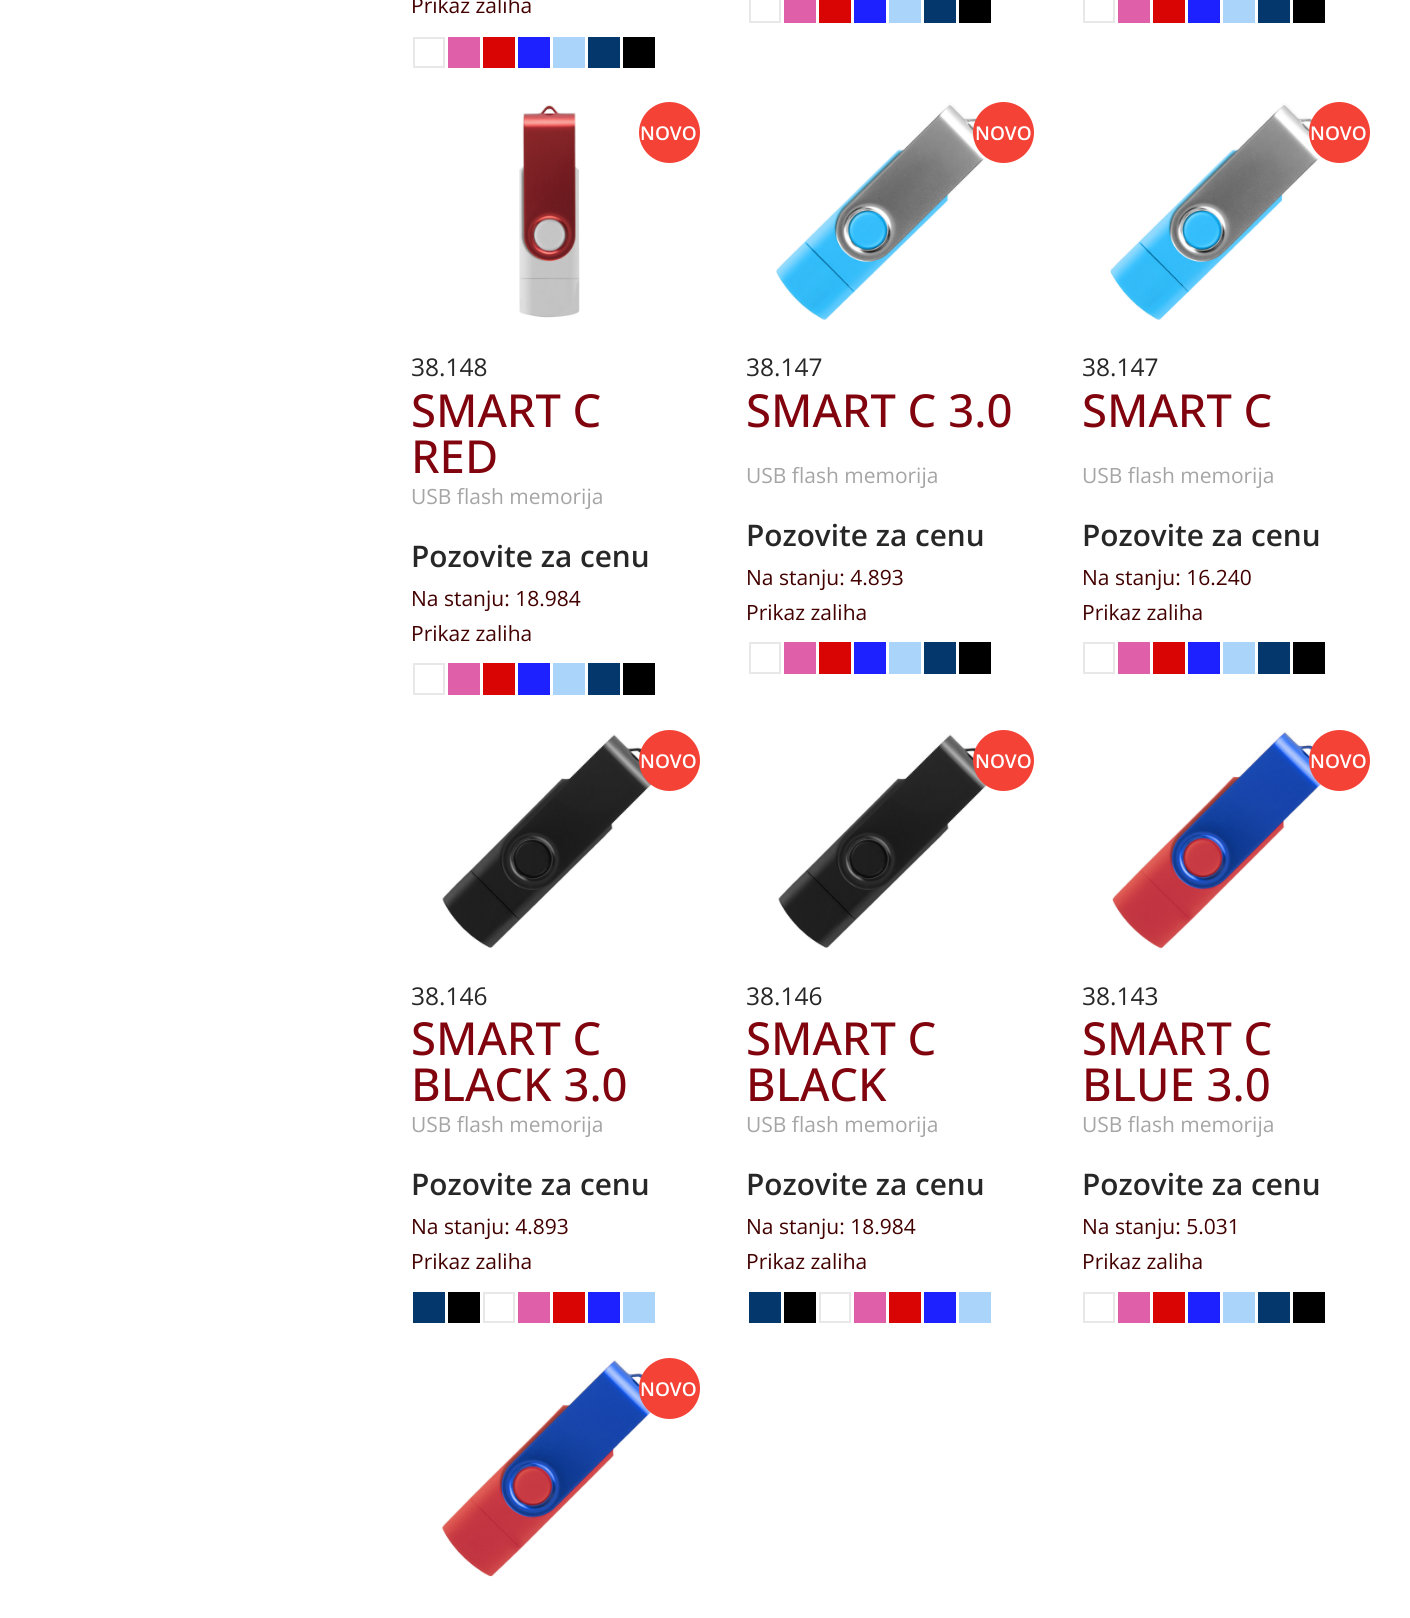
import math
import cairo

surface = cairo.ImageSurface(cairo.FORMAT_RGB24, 1410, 1618)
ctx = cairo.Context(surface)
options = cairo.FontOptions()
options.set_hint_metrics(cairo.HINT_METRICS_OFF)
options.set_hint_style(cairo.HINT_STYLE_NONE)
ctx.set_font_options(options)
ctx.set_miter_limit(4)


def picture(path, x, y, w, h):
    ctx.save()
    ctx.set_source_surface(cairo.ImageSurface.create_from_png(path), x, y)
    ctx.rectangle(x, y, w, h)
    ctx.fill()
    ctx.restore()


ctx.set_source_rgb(1, 1, 1)
ctx.paint()
ctx.select_font_face("Open Sans")
ctx.set_font_size(21)
ctx.set_source_rgb(0.259, 0, 0)
ctx.move_to(411, 13)
ctx.show_text("Prikaz zaliha")
ctx.rectangle(414, 38, 30, 29)
ctx.set_source_rgb(0.91, 0.91, 0.91)
ctx.stroke()
ctx.set_source_rgb(0.878, 0.373, 0.663)
ctx.rectangle(448, 37, 32, 31)
ctx.fill()
ctx.set_source_rgb(0.851, 0.02, 0.016)
ctx.rectangle(483, 37, 32, 31)
ctx.fill()
ctx.set_source_rgb(0.114, 0.129, 1)
ctx.rectangle(518, 37, 32, 31)
ctx.fill()
ctx.set_source_rgb(0.667, 0.831, 0.98)
ctx.rectangle(553, 37, 32, 31)
ctx.fill()
ctx.set_source_rgb(0.016, 0.22, 0.427)
ctx.rectangle(588, 37, 32, 31)
ctx.fill()
ctx.set_source_rgb(0, 0, 0)
ctx.rectangle(623, 37, 32, 31)
ctx.fill()
ctx.rectangle(750, -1, 30, 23)
ctx.set_source_rgb(0.91, 0.91, 0.91)
ctx.stroke()
ctx.set_source_rgb(0.878, 0.373, 0.663)
ctx.rectangle(784, 0, 32, 23)
ctx.fill()
ctx.set_source_rgb(0.851, 0.02, 0.016)
ctx.rectangle(819, 0, 32, 23)
ctx.fill()
ctx.set_source_rgb(0.114, 0.129, 1)
ctx.rectangle(854, 0, 32, 23)
ctx.fill()
ctx.set_source_rgb(0.667, 0.831, 0.98)
ctx.rectangle(889, 0, 32, 23)
ctx.fill()
ctx.set_source_rgb(0.016, 0.22, 0.427)
ctx.rectangle(924, 0, 32, 23)
ctx.fill()
ctx.set_source_rgb(0, 0, 0)
ctx.rectangle(959, 0, 32, 23)
ctx.fill()
ctx.rectangle(1084, -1, 30, 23)
ctx.set_source_rgb(0.91, 0.91, 0.91)
ctx.stroke()
ctx.set_source_rgb(0.878, 0.373, 0.663)
ctx.rectangle(1118, 0, 32, 23)
ctx.fill()
ctx.set_source_rgb(0.851, 0.02, 0.016)
ctx.rectangle(1153, 0, 32, 23)
ctx.fill()
ctx.set_source_rgb(0.114, 0.129, 1)
ctx.rectangle(1188, 0, 32, 23)
ctx.fill()
ctx.set_source_rgb(0.667, 0.831, 0.98)
ctx.rectangle(1223, 0, 32, 23)
ctx.fill()
ctx.set_source_rgb(0.016, 0.22, 0.427)
ctx.rectangle(1258, 0, 32, 23)
ctx.fill()
ctx.set_source_rgb(0, 0, 0)
ctx.rectangle(1293, 0, 32, 23)
ctx.fill()
picture("img1.png", 519, 105, 61, 213)
ctx.set_source_rgb(0.957, 0.263, 0.212)
ctx.arc(669.5, 132.5, 30.5, 0, 2 * math.pi)
ctx.fill()
ctx.select_font_face("Open Sans SemiBold")
ctx.set_font_size(19)
ctx.set_source_rgb(1, 1, 1)
ctx.move_to(640, 140)
ctx.show_text("NOVO")
ctx.select_font_face("Open Sans")
ctx.set_font_size(24.5)
ctx.set_source_rgb(0.153, 0.153, 0.153)
ctx.move_to(411, 376)
ctx.show_text("38.148")
ctx.select_font_face("Open Sans Medium")
ctx.set_font_size(45.5)
ctx.set_source_rgb(0.502, 0.012, 0.051)
ctx.move_to(411, 427)
ctx.show_text("SMART C")
ctx.move_to(411, 473)
ctx.show_text("RED")
ctx.select_font_face("Open Sans")
ctx.set_font_size(21)
ctx.set_source_rgb(0.647, 0.647, 0.647)
ctx.move_to(411, 504)
ctx.show_text("USB flash memorija")
ctx.select_font_face("Open Sans SemiBold")
ctx.set_font_size(29.75)
ctx.set_source_rgb(0.153, 0.153, 0.153)
ctx.move_to(411, 567)
ctx.show_text("Pozovite za cenu")
ctx.select_font_face("Open Sans")
ctx.set_font_size(21)
ctx.set_source_rgb(0.259, 0, 0)
ctx.move_to(411, 606)
ctx.show_text("Na stanju: 18.984")
ctx.move_to(411, 641)
ctx.show_text("Prikaz zaliha")
ctx.rectangle(414, 664, 30, 30)
ctx.set_source_rgb(0.91, 0.91, 0.91)
ctx.stroke()
ctx.set_source_rgb(0.878, 0.373, 0.663)
ctx.rectangle(448, 663, 32, 32)
ctx.fill()
ctx.set_source_rgb(0.851, 0.02, 0.016)
ctx.rectangle(483, 663, 32, 32)
ctx.fill()
ctx.set_source_rgb(0.114, 0.129, 1)
ctx.rectangle(518, 663, 32, 32)
ctx.fill()
ctx.set_source_rgb(0.667, 0.831, 0.98)
ctx.rectangle(553, 663, 32, 32)
ctx.fill()
ctx.set_source_rgb(0.016, 0.22, 0.427)
ctx.rectangle(588, 663, 32, 32)
ctx.fill()
ctx.set_source_rgb(0, 0, 0)
ctx.rectangle(623, 663, 32, 32)
ctx.fill()
picture("img2.png", 776, 103, 218, 217)
ctx.set_source_rgb(0.957, 0.263, 0.212)
ctx.arc(1003.5, 132.5, 30.5, 0, 2 * math.pi)
ctx.fill()
ctx.select_font_face("Open Sans SemiBold")
ctx.set_font_size(19)
ctx.set_source_rgb(1, 1, 1)
ctx.move_to(975, 140)
ctx.show_text("NOVO")
ctx.select_font_face("Open Sans")
ctx.set_font_size(24.5)
ctx.set_source_rgb(0.153, 0.153, 0.153)
ctx.move_to(746, 376)
ctx.show_text("38.147")
ctx.select_font_face("Open Sans Medium")
ctx.set_font_size(45.5)
ctx.set_source_rgb(0.502, 0.012, 0.051)
ctx.move_to(746, 427)
ctx.show_text("SMART C 3.0")
ctx.select_font_face("Open Sans")
ctx.set_font_size(21)
ctx.set_source_rgb(0.647, 0.647, 0.647)
ctx.move_to(746, 483)
ctx.show_text("USB flash memorija")
ctx.select_font_face("Open Sans SemiBold")
ctx.set_font_size(29.75)
ctx.set_source_rgb(0.153, 0.153, 0.153)
ctx.move_to(746, 546)
ctx.show_text("Pozovite za cenu")
ctx.select_font_face("Open Sans")
ctx.set_font_size(21)
ctx.set_source_rgb(0.259, 0, 0)
ctx.move_to(746, 585)
ctx.show_text("Na stanju: 4.893")
ctx.move_to(746, 620)
ctx.show_text("Prikaz zaliha")
ctx.rectangle(750, 643, 30, 30)
ctx.set_source_rgb(0.91, 0.91, 0.91)
ctx.stroke()
ctx.set_source_rgb(0.878, 0.373, 0.663)
ctx.rectangle(784, 642, 32, 32)
ctx.fill()
ctx.set_source_rgb(0.851, 0.02, 0.016)
ctx.rectangle(819, 642, 32, 32)
ctx.fill()
ctx.set_source_rgb(0.114, 0.129, 1)
ctx.rectangle(854, 642, 32, 32)
ctx.fill()
ctx.set_source_rgb(0.667, 0.831, 0.98)
ctx.rectangle(889, 642, 32, 32)
ctx.fill()
ctx.set_source_rgb(0.016, 0.22, 0.427)
ctx.rectangle(924, 642, 32, 32)
ctx.fill()
ctx.set_source_rgb(0, 0, 0)
ctx.rectangle(959, 642, 32, 32)
ctx.fill()
picture("img3.png", 1110, 103, 218, 217)
ctx.set_source_rgb(0.957, 0.263, 0.212)
ctx.arc(1339.5, 132.5, 30.5, 0, 2 * math.pi)
ctx.fill()
ctx.select_font_face("Open Sans SemiBold")
ctx.set_font_size(19)
ctx.set_source_rgb(1, 1, 1)
ctx.move_to(1310, 140)
ctx.show_text("NOVO")
ctx.select_font_face("Open Sans")
ctx.set_font_size(24.5)
ctx.set_source_rgb(0.153, 0.153, 0.153)
ctx.move_to(1082, 376)
ctx.show_text("38.147")
ctx.select_font_face("Open Sans Medium")
ctx.set_font_size(45.5)
ctx.set_source_rgb(0.502, 0.012, 0.051)
ctx.move_to(1082, 427)
ctx.show_text("SMART C")
ctx.select_font_face("Open Sans")
ctx.set_font_size(21)
ctx.set_source_rgb(0.647, 0.647, 0.647)
ctx.move_to(1082, 483)
ctx.show_text("USB flash memorija")
ctx.select_font_face("Open Sans SemiBold")
ctx.set_font_size(29.75)
ctx.set_source_rgb(0.153, 0.153, 0.153)
ctx.move_to(1082, 546)
ctx.show_text("Pozovite za cenu")
ctx.select_font_face("Open Sans")
ctx.set_font_size(21)
ctx.set_source_rgb(0.259, 0, 0)
ctx.move_to(1082, 585)
ctx.show_text("Na stanju: 16.240")
ctx.move_to(1082, 620)
ctx.show_text("Prikaz zaliha")
ctx.rectangle(1084, 643, 30, 30)
ctx.set_source_rgb(0.91, 0.91, 0.91)
ctx.stroke()
ctx.set_source_rgb(0.878, 0.373, 0.663)
ctx.rectangle(1118, 642, 32, 32)
ctx.fill()
ctx.set_source_rgb(0.851, 0.02, 0.016)
ctx.rectangle(1153, 642, 32, 32)
ctx.fill()
ctx.set_source_rgb(0.114, 0.129, 1)
ctx.rectangle(1188, 642, 32, 32)
ctx.fill()
ctx.set_source_rgb(0.667, 0.831, 0.98)
ctx.rectangle(1223, 642, 32, 32)
ctx.fill()
ctx.set_source_rgb(0.016, 0.22, 0.427)
ctx.rectangle(1258, 642, 32, 32)
ctx.fill()
ctx.set_source_rgb(0, 0, 0)
ctx.rectangle(1293, 642, 32, 32)
ctx.fill()
picture("img4.png", 442, 734, 216, 214)
ctx.set_source_rgb(0.957, 0.263, 0.212)
ctx.arc(669.5, 760.5, 30.5, 0, 2 * math.pi)
ctx.fill()
ctx.select_font_face("Open Sans SemiBold")
ctx.set_font_size(19)
ctx.set_source_rgb(1, 1, 1)
ctx.move_to(640, 768)
ctx.show_text("NOVO")
ctx.select_font_face("Open Sans")
ctx.set_font_size(24.5)
ctx.set_source_rgb(0.153, 0.153, 0.153)
ctx.move_to(411, 1005)
ctx.show_text("38.146")
ctx.select_font_face("Open Sans Medium")
ctx.set_font_size(45.5)
ctx.set_source_rgb(0.502, 0.012, 0.051)
ctx.move_to(411, 1055)
ctx.show_text("SMART C")
ctx.move_to(411, 1101)
ctx.show_text("BLACK 3.0")
ctx.select_font_face("Open Sans")
ctx.set_font_size(21)
ctx.set_source_rgb(0.647, 0.647, 0.647)
ctx.move_to(411, 1132)
ctx.show_text("USB flash memorija")
ctx.select_font_face("Open Sans SemiBold")
ctx.set_font_size(29.75)
ctx.set_source_rgb(0.153, 0.153, 0.153)
ctx.move_to(411, 1195)
ctx.show_text("Pozovite za cenu")
ctx.select_font_face("Open Sans")
ctx.set_font_size(21)
ctx.set_source_rgb(0.259, 0, 0)
ctx.move_to(411, 1234)
ctx.show_text("Na stanju: 4.893")
ctx.move_to(411, 1269)
ctx.show_text("Prikaz zaliha")
ctx.set_source_rgb(0.016, 0.22, 0.427)
ctx.rectangle(413, 1292, 32, 31)
ctx.fill()
ctx.set_source_rgb(0, 0, 0)
ctx.rectangle(448, 1292, 32, 31)
ctx.fill()
ctx.rectangle(484, 1293, 30, 29)
ctx.set_source_rgb(0.91, 0.91, 0.91)
ctx.stroke()
ctx.set_source_rgb(0.878, 0.373, 0.663)
ctx.rectangle(518, 1292, 32, 31)
ctx.fill()
ctx.set_source_rgb(0.851, 0.02, 0.016)
ctx.rectangle(553, 1292, 32, 31)
ctx.fill()
ctx.set_source_rgb(0.114, 0.129, 1)
ctx.rectangle(588, 1292, 32, 31)
ctx.fill()
ctx.set_source_rgb(0.667, 0.831, 0.98)
ctx.rectangle(623, 1292, 32, 31)
ctx.fill()
picture("img4.png", 778, 734, 216, 214)
ctx.set_source_rgb(0.957, 0.263, 0.212)
ctx.arc(1003.5, 760.5, 30.5, 0, 2 * math.pi)
ctx.fill()
ctx.select_font_face("Open Sans SemiBold")
ctx.set_font_size(19)
ctx.set_source_rgb(1, 1, 1)
ctx.move_to(975, 768)
ctx.show_text("NOVO")
ctx.select_font_face("Open Sans")
ctx.set_font_size(24.5)
ctx.set_source_rgb(0.153, 0.153, 0.153)
ctx.move_to(746, 1005)
ctx.show_text("38.146")
ctx.select_font_face("Open Sans Medium")
ctx.set_font_size(45.5)
ctx.set_source_rgb(0.502, 0.012, 0.051)
ctx.move_to(746, 1055)
ctx.show_text("SMART C")
ctx.move_to(746, 1101)
ctx.show_text("BLACK")
ctx.select_font_face("Open Sans")
ctx.set_font_size(21)
ctx.set_source_rgb(0.647, 0.647, 0.647)
ctx.move_to(746, 1132)
ctx.show_text("USB flash memorija")
ctx.select_font_face("Open Sans SemiBold")
ctx.set_font_size(29.75)
ctx.set_source_rgb(0.153, 0.153, 0.153)
ctx.move_to(746, 1195)
ctx.show_text("Pozovite za cenu")
ctx.select_font_face("Open Sans")
ctx.set_font_size(21)
ctx.set_source_rgb(0.259, 0, 0)
ctx.move_to(746, 1234)
ctx.show_text("Na stanju: 18.984")
ctx.move_to(746, 1269)
ctx.show_text("Prikaz zaliha")
ctx.set_source_rgb(0.016, 0.22, 0.427)
ctx.rectangle(749, 1292, 32, 31)
ctx.fill()
ctx.set_source_rgb(0, 0, 0)
ctx.rectangle(784, 1292, 32, 31)
ctx.fill()
ctx.rectangle(820, 1293, 30, 29)
ctx.set_source_rgb(0.91, 0.91, 0.91)
ctx.stroke()
ctx.set_source_rgb(0.878, 0.373, 0.663)
ctx.rectangle(854, 1292, 32, 31)
ctx.fill()
ctx.set_source_rgb(0.851, 0.02, 0.016)
ctx.rectangle(889, 1292, 32, 31)
ctx.fill()
ctx.set_source_rgb(0.114, 0.129, 1)
ctx.rectangle(924, 1292, 32, 31)
ctx.fill()
ctx.set_source_rgb(0.667, 0.831, 0.98)
ctx.rectangle(959, 1292, 32, 31)
ctx.fill()
picture("img5.png", 1112, 731, 218, 218)
ctx.set_source_rgb(0.957, 0.263, 0.212)
ctx.arc(1339.5, 760.5, 30.5, 0, 2 * math.pi)
ctx.fill()
ctx.select_font_face("Open Sans SemiBold")
ctx.set_font_size(19)
ctx.set_source_rgb(1, 1, 1)
ctx.move_to(1310, 768)
ctx.show_text("NOVO")
ctx.select_font_face("Open Sans")
ctx.set_font_size(24.5)
ctx.set_source_rgb(0.153, 0.153, 0.153)
ctx.move_to(1082, 1005)
ctx.show_text("38.143")
ctx.select_font_face("Open Sans Medium")
ctx.set_font_size(45.5)
ctx.set_source_rgb(0.502, 0.012, 0.051)
ctx.move_to(1082, 1055)
ctx.show_text("SMART C")
ctx.move_to(1082, 1101)
ctx.show_text("BLUE 3.0")
ctx.select_font_face("Open Sans")
ctx.set_font_size(21)
ctx.set_source_rgb(0.647, 0.647, 0.647)
ctx.move_to(1082, 1132)
ctx.show_text("USB flash memorija")
ctx.select_font_face("Open Sans SemiBold")
ctx.set_font_size(29.75)
ctx.set_source_rgb(0.153, 0.153, 0.153)
ctx.move_to(1082, 1195)
ctx.show_text("Pozovite za cenu")
ctx.select_font_face("Open Sans")
ctx.set_font_size(21)
ctx.set_source_rgb(0.259, 0, 0)
ctx.move_to(1082, 1234)
ctx.show_text("Na stanju: 5.031")
ctx.move_to(1082, 1269)
ctx.show_text("Prikaz zaliha")
ctx.rectangle(1084, 1293, 30, 29)
ctx.set_source_rgb(0.91, 0.91, 0.91)
ctx.stroke()
ctx.set_source_rgb(0.878, 0.373, 0.663)
ctx.rectangle(1118, 1292, 32, 31)
ctx.fill()
ctx.set_source_rgb(0.851, 0.02, 0.016)
ctx.rectangle(1153, 1292, 32, 31)
ctx.fill()
ctx.set_source_rgb(0.114, 0.129, 1)
ctx.rectangle(1188, 1292, 32, 31)
ctx.fill()
ctx.set_source_rgb(0.667, 0.831, 0.98)
ctx.rectangle(1223, 1292, 32, 31)
ctx.fill()
ctx.set_source_rgb(0.016, 0.22, 0.427)
ctx.rectangle(1258, 1292, 32, 31)
ctx.fill()
ctx.set_source_rgb(0, 0, 0)
ctx.rectangle(1293, 1292, 32, 31)
ctx.fill()
picture("img6.png", 441, 1360, 218, 217)
ctx.set_source_rgb(0.957, 0.263, 0.212)
ctx.arc(669.5, 1388.5, 30.5, 0, 2 * math.pi)
ctx.fill()
ctx.select_font_face("Open Sans SemiBold")
ctx.set_font_size(19)
ctx.set_source_rgb(1, 1, 1)
ctx.move_to(640, 1396)
ctx.show_text("NOVO")
surface.write_to_png("page.png")
